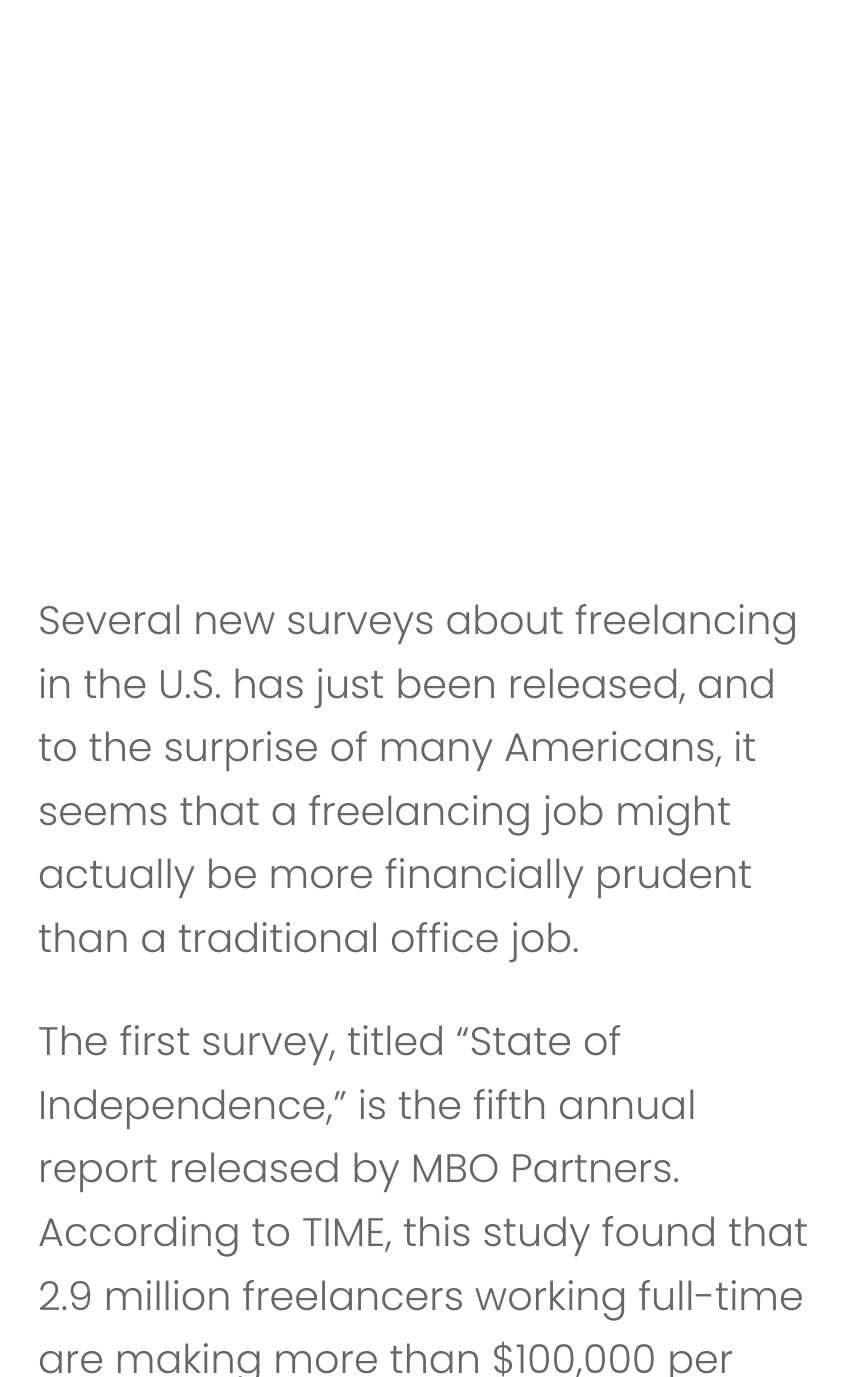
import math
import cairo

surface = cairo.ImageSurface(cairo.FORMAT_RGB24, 855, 1377)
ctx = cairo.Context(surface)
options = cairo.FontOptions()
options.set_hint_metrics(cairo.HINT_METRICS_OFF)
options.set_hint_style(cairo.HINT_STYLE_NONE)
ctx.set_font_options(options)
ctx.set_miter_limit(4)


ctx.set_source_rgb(1, 1, 1)
ctx.paint()
ctx.select_font_face("Poppins Light")
ctx.set_font_size(39.75)
ctx.set_source_rgb(0.4, 0.4, 0.4)
ctx.move_to(38, 634)
ctx.show_text("Several new surveys about freelancing")
ctx.move_to(38, 698)
ctx.show_text("in the U.S. has just been released, and")
ctx.move_to(38, 761)
ctx.show_text("to the surprise of many Americans, it")
ctx.move_to(38, 825)
ctx.show_text("seems that a freelancing job might")
ctx.move_to(38, 888)
ctx.show_text("actually be more financially prudent")
ctx.move_to(38, 952)
ctx.show_text("than a traditional office job.")
ctx.move_to(38, 1055)
ctx.show_text("The first survey, titled “State of")
ctx.move_to(38, 1119)
ctx.show_text("Independence,” is the fifth annual")
ctx.move_to(38, 1182)
ctx.show_text("report released by MBO Partners.")
ctx.move_to(38, 1246)
ctx.show_text("According to TIME, this study found that")
ctx.move_to(38, 1310)
ctx.show_text("2.9 million freelancers working full-time")
ctx.move_to(38, 1373)
ctx.show_text("are making more than $100,000 per")
surface.write_to_png("page.png")
